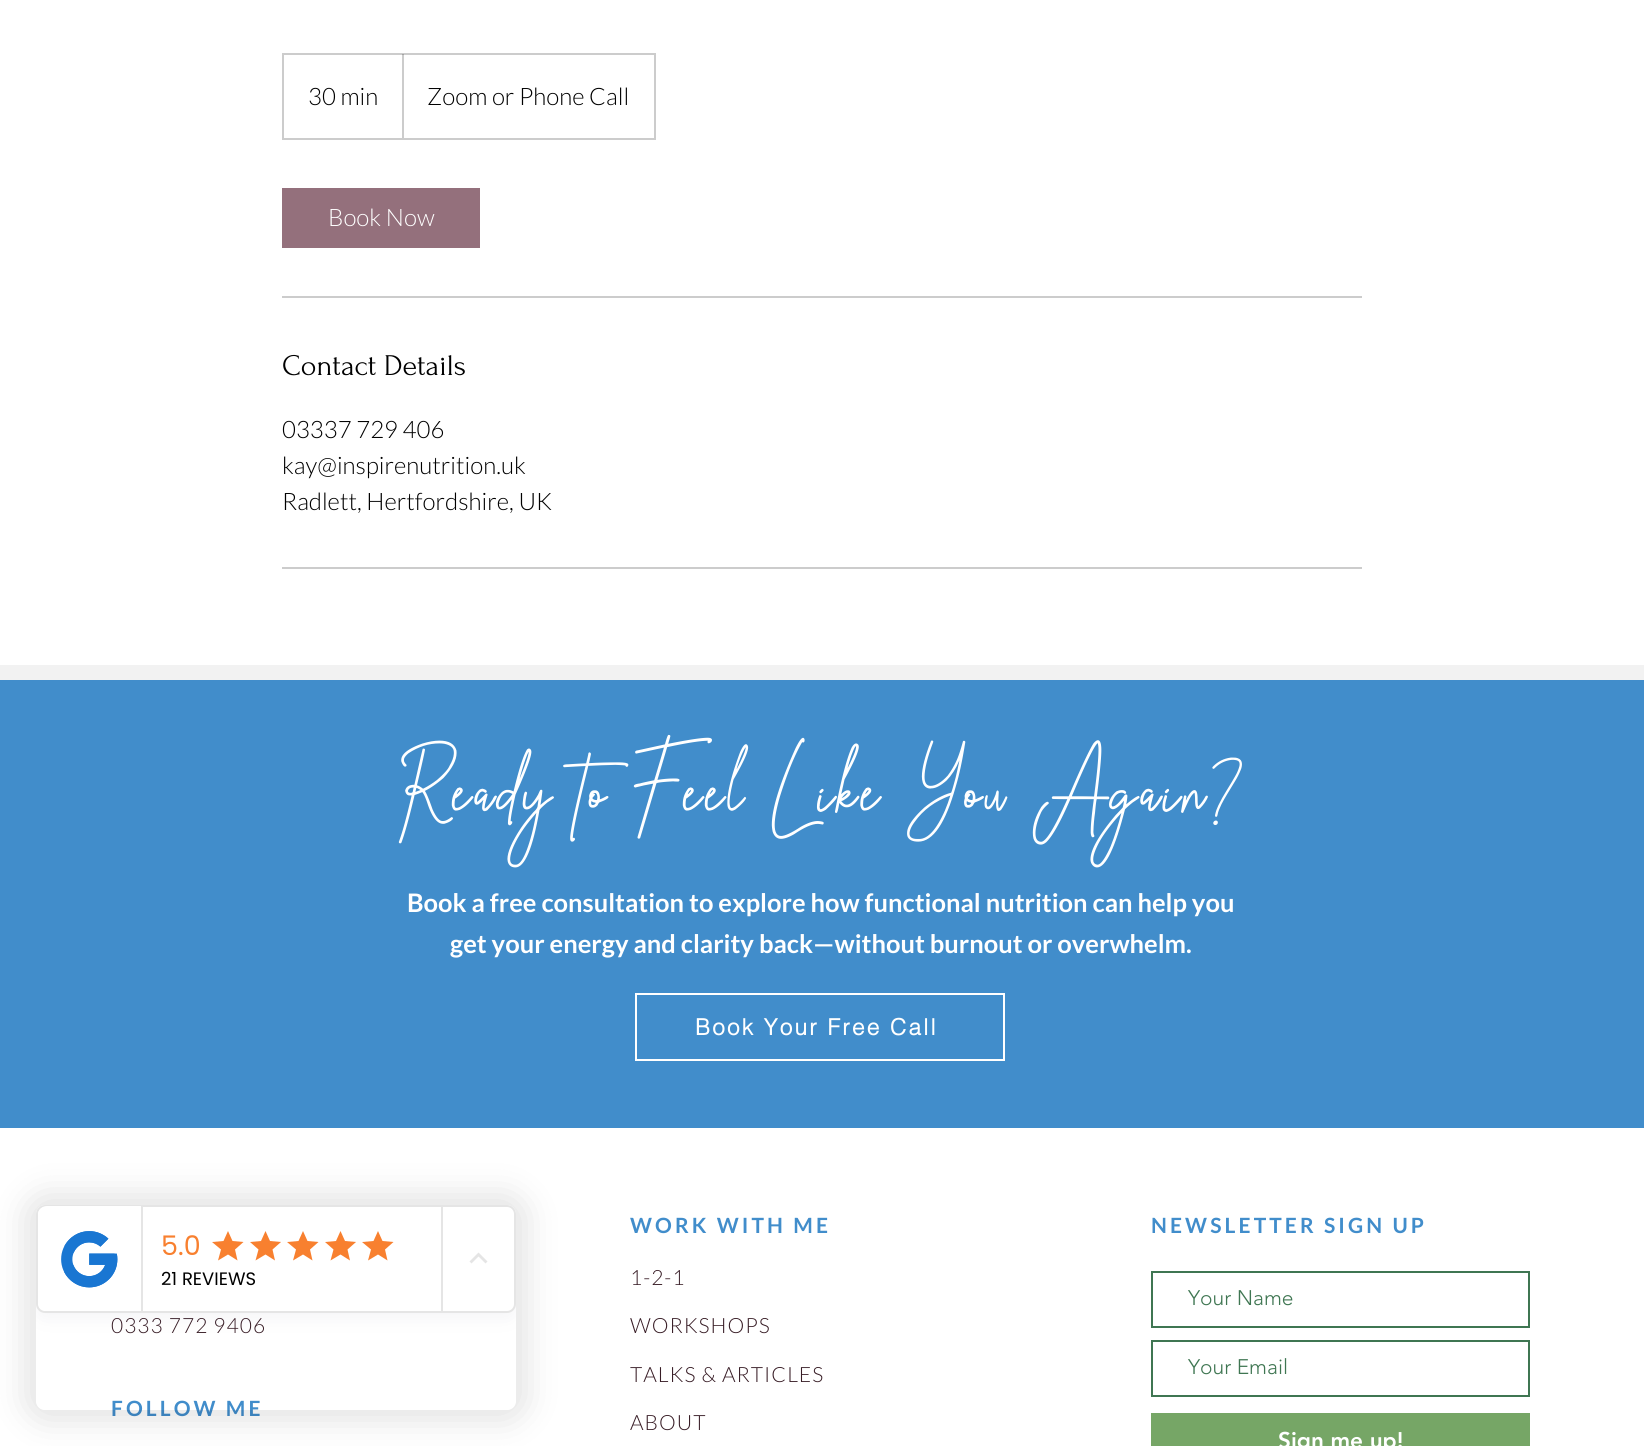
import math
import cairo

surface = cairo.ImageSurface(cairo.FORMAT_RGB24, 1644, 1446)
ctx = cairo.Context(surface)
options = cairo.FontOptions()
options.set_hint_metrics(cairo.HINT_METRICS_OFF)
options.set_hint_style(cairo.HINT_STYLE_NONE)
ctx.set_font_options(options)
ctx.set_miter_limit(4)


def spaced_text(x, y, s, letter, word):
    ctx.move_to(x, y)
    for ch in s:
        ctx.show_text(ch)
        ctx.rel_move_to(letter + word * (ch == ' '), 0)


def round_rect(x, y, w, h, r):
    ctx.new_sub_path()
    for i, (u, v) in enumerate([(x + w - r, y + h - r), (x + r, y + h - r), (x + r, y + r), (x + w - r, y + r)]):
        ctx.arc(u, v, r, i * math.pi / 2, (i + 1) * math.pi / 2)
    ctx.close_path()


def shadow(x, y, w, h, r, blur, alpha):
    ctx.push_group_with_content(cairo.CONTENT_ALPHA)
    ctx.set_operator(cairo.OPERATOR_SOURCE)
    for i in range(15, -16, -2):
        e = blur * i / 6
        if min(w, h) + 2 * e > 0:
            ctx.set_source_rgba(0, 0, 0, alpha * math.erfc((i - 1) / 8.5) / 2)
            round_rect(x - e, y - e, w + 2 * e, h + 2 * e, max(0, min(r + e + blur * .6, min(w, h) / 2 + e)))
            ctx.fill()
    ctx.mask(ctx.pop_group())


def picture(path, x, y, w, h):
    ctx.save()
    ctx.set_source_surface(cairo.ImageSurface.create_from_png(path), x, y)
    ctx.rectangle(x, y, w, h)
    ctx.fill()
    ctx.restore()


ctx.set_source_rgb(0.949, 0.949, 0.949)
ctx.paint()
ctx.set_source_rgb(1, 1, 1)
ctx.rectangle(0, 0, 1644, 665)
ctx.fill()
ctx.rectangle(283, 54, 372, 85)
ctx.set_source_rgb(0.8, 0.8, 0.8)
ctx.stroke()
ctx.select_font_face("Lato Light")
ctx.set_font_size(24)
ctx.set_source_rgb(0, 0, 0)
ctx.move_to(308, 105)
ctx.show_text("30 min")
ctx.save()
ctx.rectangle(284, 54, 370, 84)
ctx.clip()
ctx.set_source_rgba(0, 0, 0, 0.2)
ctx.new_path()
ctx.move_to(402, 138)
ctx.line_to(402, 52)
ctx.line_to(404, 54)
ctx.line_to(404, 138)
ctx.close_path()
ctx.fill()
ctx.restore()
ctx.move_to(427, 105)
ctx.show_text("Zoom or Phone Call")
ctx.set_source_rgb(0.58, 0.439, 0.486)
ctx.rectangle(282, 188, 198, 60)
ctx.fill()
ctx.set_source_rgb(1, 1, 1)
ctx.move_to(328, 226)
ctx.show_text("Book Now")
ctx.set_source_rgb(0.8, 0.8, 0.8)
ctx.rectangle(282, 296, 1080, 2)
ctx.fill()
ctx.select_font_face("Forum")
ctx.set_font_size(30)
ctx.set_source_rgb(0, 0, 0)
ctx.move_to(282, 375)
ctx.show_text("Contact Details")
ctx.select_font_face("Lato Light")
ctx.set_font_size(24)
ctx.move_to(282, 438)
ctx.show_text("03337 729 406")
ctx.move_to(282, 474)
ctx.show_text("kay@inspirenutrition.uk")
ctx.move_to(282, 510)
ctx.show_text("Radlett, Hertfordshire, UK")
ctx.set_source_rgb(0.8, 0.8, 0.8)
ctx.rectangle(282, 567, 1080, 2)
ctx.fill()
ctx.set_source_rgb(0.255, 0.553, 0.796)
ctx.rectangle(0, 680, 1644, 448)
ctx.fill()
ctx.select_font_face("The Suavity")
ctx.set_font_size(75)
ctx.set_source_rgb(1, 1, 1)
spaced_text(397, 810, "Ready to Feel Like You Again?", 3.75, 0)
ctx.select_font_face("Lato", cairo.FONT_SLANT_NORMAL, cairo.FONT_WEIGHT_BOLD)
ctx.set_font_size(25.5)
ctx.move_to(407, 912)
ctx.show_text("Book a free consultation to explore how functional nutrition can help you")
ctx.move_to(450, 953)
ctx.show_text("get your energy and clarity back—without burnout or overwhelm.")
ctx.rectangle(636, 994, 368, 66)
ctx.stroke()
ctx.select_font_face("helvetica", cairo.FONT_SLANT_NORMAL, cairo.FONT_WEIGHT_BOLD)
ctx.set_font_size(22.5)
spaced_text(695, 1035, "Book Your Free Call", 2.25, 0)
ctx.rectangle(0, 1128, 1644, 318)
ctx.fill()
ctx.select_font_face("Lato", cairo.FONT_SLANT_NORMAL, cairo.FONT_WEIGHT_BOLD)
ctx.set_font_size(21)
ctx.set_source_rgb(0.255, 0.553, 0.796)
spaced_text(630, 1233, "WORK WITH ME", 3.1, 0)
spaced_text(1151, 1233, "NEWSLETTER SIGN UP", 3.1, 0)
ctx.select_font_face("Lato Light")
ctx.set_source_rgb(0.22, 0.114, 0.149)
spaced_text(111, 1333, "0333 772 9406", 1, 0)
spaced_text(630, 1285, "1-2-1", 1, 0)
spaced_text(630, 1333, "WORKSHOPS", 1, 0)
spaced_text(630, 1382, "TALKS & ARTICLES", 1, 0)
spaced_text(630, 1430, "ABOUT", 1, 0)
ctx.rectangle(1152, 1272, 377, 55)
ctx.set_source_rgb(0.247, 0.463, 0.322)
ctx.stroke()
ctx.select_font_face("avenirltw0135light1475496 Light")
ctx.move_to(1188, 1305)
ctx.show_text("Your Name")
ctx.rectangle(1152, 1341, 377, 55)
ctx.stroke()
ctx.move_to(1188, 1374)
ctx.show_text("Your Email")
ctx.set_source_rgb(0.463, 0.651, 0.4)
ctx.rectangle(1151, 1413, 379, 33)
ctx.fill()
ctx.select_font_face("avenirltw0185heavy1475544 Black")
ctx.set_font_size(22.5)
ctx.set_source_rgb(1, 1, 1)
ctx.move_to(1278, 1448)
ctx.show_text("Sign me up!")
ctx.select_font_face("Lato", cairo.FONT_SLANT_NORMAL, cairo.FONT_WEIGHT_BOLD)
ctx.set_font_size(21)
ctx.set_source_rgb(0.255, 0.553, 0.796)
spaced_text(111, 1416, "FOLLOW ME", 3.1, 0)
ctx.save()
ctx.set_fill_rule(cairo.FILL_RULE_EVEN_ODD)
ctx.new_path()
ctx.move_to(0, 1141)
ctx.line_to(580, 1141)
ctx.line_to(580, 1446)
ctx.line_to(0, 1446)
ctx.close_path()
ctx.move_to(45, 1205)
ctx.line_to(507, 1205)
ctx.curve_to(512, 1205, 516, 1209, 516, 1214)
ctx.line_to(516, 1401)
ctx.curve_to(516, 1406, 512, 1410, 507, 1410)
ctx.line_to(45, 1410)
ctx.curve_to(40, 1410, 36, 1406, 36, 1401)
ctx.line_to(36, 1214)
ctx.curve_to(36, 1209, 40, 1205, 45, 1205)
ctx.close_path()
ctx.clip()
ctx.set_source_rgb(0, 0, 0)
shadow(27, 1196, 498, 223, 18, 18, 0.12)
ctx.restore()
ctx.save()
round_rect(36, 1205, 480, 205, 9)
ctx.clip()
ctx.set_source_rgb(0.298, 0.298, 0.427)
shadow(36, 1211, 480, 108, 9, 9, 0.06)
ctx.restore()
ctx.set_source_rgb(1, 1, 1)
round_rect(37, 1206, 478, 106, 8)
ctx.fill_preserve()
ctx.set_source_rgb(0.898, 0.898, 0.898)
ctx.stroke()
ctx.set_source_rgb(1, 1, 1)
ctx.new_path()
ctx.move_to(47, 1206)
ctx.line_to(143, 1206)
ctx.line_to(143, 1311)
ctx.line_to(47, 1311)
ctx.curve_to(42, 1311, 38, 1307, 38, 1302)
ctx.line_to(38, 1215)
ctx.curve_to(38, 1210, 42, 1206, 47, 1206)
ctx.close_path()
ctx.fill()
ctx.set_source_rgb(0.898, 0.898, 0.898)
ctx.rectangle(141, 1206, 2, 105)
ctx.fill()
picture("img1.png", 61, 1231, 57, 57)
ctx.rectangle(441, 1206, 2, 105)
ctx.fill()
ctx.select_font_face("Poppins")
ctx.set_font_size(27)
ctx.set_source_rgb(0.969, 0.502, 0.184)
ctx.move_to(161, 1255)
ctx.show_text("5.0")
ctx.new_path()
ctx.move_to(228, 1254.5)
ctx.line_to(237.5, 1260.5)
ctx.line_to(235, 1249.5)
ctx.line_to(243.5, 1242)
ctx.line_to(232.5, 1241)
ctx.line_to(228, 1231)
ctx.line_to(223.5, 1241)
ctx.line_to(212, 1242)
ctx.line_to(221, 1249.5)
ctx.line_to(218, 1260.5)
ctx.close_path()
ctx.fill()
ctx.new_path()
ctx.move_to(265.5, 1254.5)
ctx.line_to(275, 1260.5)
ctx.line_to(272.5, 1249.5)
ctx.line_to(281, 1242)
ctx.line_to(270, 1241)
ctx.line_to(265.5, 1231)
ctx.line_to(261, 1241)
ctx.line_to(250, 1242)
ctx.line_to(258.5, 1249.5)
ctx.line_to(255.5, 1260.5)
ctx.close_path()
ctx.fill()
ctx.new_path()
ctx.move_to(303, 1254.5)
ctx.line_to(312.5, 1260.5)
ctx.line_to(310, 1249.5)
ctx.line_to(318.5, 1242)
ctx.line_to(307.5, 1241)
ctx.line_to(303, 1231)
ctx.line_to(298.5, 1241)
ctx.line_to(287, 1242)
ctx.line_to(296, 1249.5)
ctx.line_to(293, 1260.5)
ctx.close_path()
ctx.fill()
ctx.new_path()
ctx.move_to(340.5, 1254.5)
ctx.line_to(350, 1260.5)
ctx.line_to(347.5, 1249.5)
ctx.line_to(356, 1242)
ctx.line_to(345, 1241)
ctx.line_to(340.5, 1231)
ctx.line_to(336, 1241)
ctx.line_to(325, 1242)
ctx.line_to(333.5, 1249.5)
ctx.line_to(330.5, 1260.5)
ctx.close_path()
ctx.fill()
ctx.new_path()
ctx.move_to(378, 1254.5)
ctx.line_to(387.5, 1260.5)
ctx.line_to(385, 1249.5)
ctx.line_to(393.5, 1242)
ctx.line_to(382.5, 1241)
ctx.line_to(378, 1231)
ctx.line_to(373.5, 1241)
ctx.line_to(362, 1242)
ctx.line_to(371, 1249.5)
ctx.line_to(368, 1260.5)
ctx.close_path()
ctx.fill()
ctx.set_font_size(18)
ctx.set_source_rgb(0, 0, 0)
ctx.move_to(161, 1285)
ctx.show_text("21 REVIEWS")
ctx.set_source_rgb(0.898, 0.898, 0.898)
ctx.new_path()
ctx.move_to(471.5, 1263.5)
ctx.line_to(478.5, 1256.5)
ctx.line_to(485.5, 1263.5)
ctx.line_to(487.5, 1261.5)
ctx.line_to(478.5, 1252.5)
ctx.line_to(469.5, 1261.5)
ctx.close_path()
ctx.fill()
surface.write_to_png("page.png")
